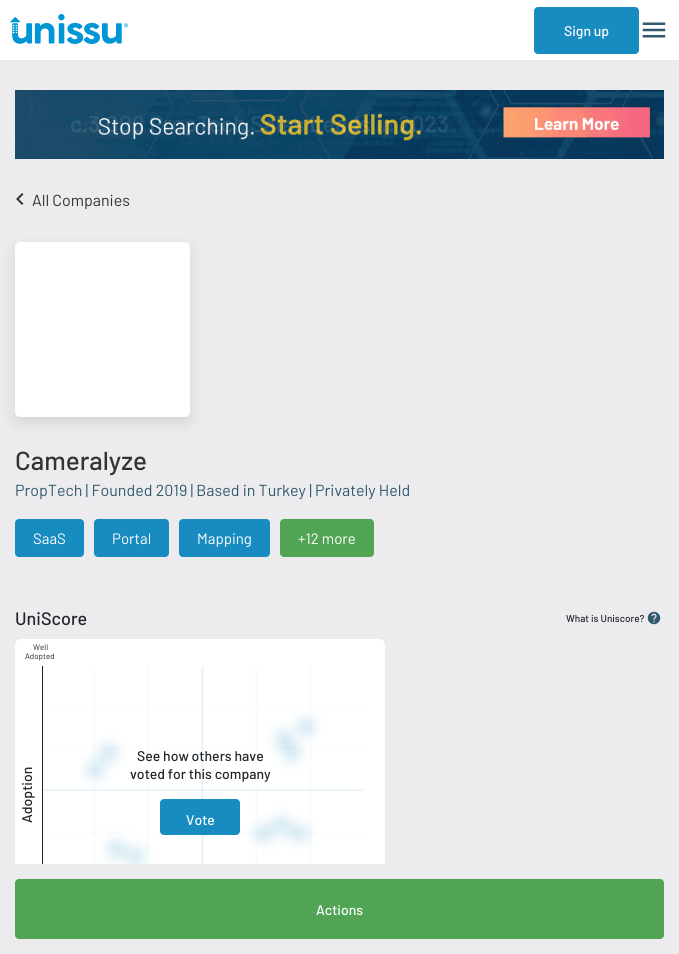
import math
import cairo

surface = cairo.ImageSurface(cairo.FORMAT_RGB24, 679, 954)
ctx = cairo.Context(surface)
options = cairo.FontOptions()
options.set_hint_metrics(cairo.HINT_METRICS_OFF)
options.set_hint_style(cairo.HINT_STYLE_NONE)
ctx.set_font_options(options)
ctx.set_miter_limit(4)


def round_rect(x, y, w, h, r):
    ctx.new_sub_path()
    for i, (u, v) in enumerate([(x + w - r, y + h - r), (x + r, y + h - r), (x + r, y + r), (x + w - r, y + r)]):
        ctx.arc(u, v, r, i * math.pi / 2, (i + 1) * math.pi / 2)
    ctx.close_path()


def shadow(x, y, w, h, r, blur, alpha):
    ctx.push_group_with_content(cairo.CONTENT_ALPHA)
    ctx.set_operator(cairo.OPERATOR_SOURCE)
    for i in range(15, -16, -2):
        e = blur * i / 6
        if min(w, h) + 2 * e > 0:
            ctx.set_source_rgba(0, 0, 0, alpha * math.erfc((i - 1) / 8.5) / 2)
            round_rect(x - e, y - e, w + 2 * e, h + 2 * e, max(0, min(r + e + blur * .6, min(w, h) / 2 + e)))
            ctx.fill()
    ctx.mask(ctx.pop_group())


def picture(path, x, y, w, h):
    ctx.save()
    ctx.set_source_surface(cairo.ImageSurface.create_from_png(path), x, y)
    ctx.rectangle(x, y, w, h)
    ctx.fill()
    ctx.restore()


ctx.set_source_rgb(1, 1, 1)
ctx.paint()
picture("img1.png", 10, 14, 118, 30)
ctx.set_source_rgb(0.094, 0.545, 0.753)
round_rect(534, 7, 105, 47, 4)
ctx.fill()
ctx.select_font_face("Barlow Medium")
ctx.set_font_size(14)
ctx.set_source_rgb(1, 1, 1)
ctx.move_to(564, 36)
ctx.show_text("Sign up")
picture("img2.png", 642, 22, 24, 16)
ctx.set_source_rgb(0.922, 0.925, 0.933)
ctx.rectangle(0, 60, 679, 804)
ctx.fill()
picture("img3.png", 15, 90, 649, 69)
picture("img4.png", 16, 193, 8, 12)
ctx.select_font_face("Barlow")
ctx.set_font_size(16)
ctx.set_source_rgb(0.2, 0.2, 0.2)
ctx.move_to(32, 206)
ctx.show_text("All Companies")
ctx.set_source_rgb(0, 0, 0)
shadow(15, 248, 175, 175, 5, 7, 0.1)
ctx.set_source_rgb(1, 1, 1)
round_rect(15, 242, 175, 175, 5)
ctx.fill()
ctx.select_font_face("Barlow Medium")
ctx.set_font_size(26)
ctx.set_source_rgb(0.2, 0.2, 0.2)
ctx.move_to(15, 470)
ctx.show_text("Cameralyze")
ctx.select_font_face("Barlow")
ctx.set_font_size(16)
ctx.set_source_rgb(0.188, 0.349, 0.431)
ctx.move_to(15, 496)
ctx.show_text("PropTech | Founded 2019 | Based in Turkey | Privately Held")
ctx.set_source_rgb(0.094, 0.545, 0.753)
round_rect(15, 519, 69, 38, 4)
ctx.fill()
ctx.set_font_size(15)
ctx.set_source_rgb(1, 1, 1)
ctx.move_to(33, 544)
ctx.show_text("SaaS")
ctx.set_source_rgb(0.094, 0.545, 0.753)
round_rect(94, 519, 75, 38, 4)
ctx.fill()
ctx.set_source_rgb(1, 1, 1)
ctx.move_to(112, 544)
ctx.show_text("Portal")
ctx.set_source_rgb(0.094, 0.545, 0.753)
round_rect(179, 519, 91, 38, 4)
ctx.fill()
ctx.set_source_rgb(1, 1, 1)
ctx.move_to(197, 544)
ctx.show_text("Mapping")
ctx.set_source_rgb(0.318, 0.643, 0.329)
round_rect(280, 519, 94, 38, 4)
ctx.fill()
ctx.set_source_rgb(1, 1, 1)
ctx.move_to(298, 544)
ctx.show_text("+12 more")
ctx.select_font_face("Barlow Medium")
ctx.set_font_size(18)
ctx.set_source_rgb(0.129, 0.145, 0.161)
ctx.move_to(15, 625)
ctx.show_text("UniScore")
ctx.set_font_size(10)
ctx.move_to(566, 622)
ctx.show_text("What is Uniscore?")
picture("img5.png", 647, 611, 14, 14)
ctx.set_source_rgb(1, 1, 1)
round_rect(15, 639, 370, 305, 6)
ctx.fill()
ctx.select_font_face("Barlow")
ctx.set_font_size(8)
ctx.set_source_rgb(0.129, 0.145, 0.161)
ctx.move_to(33, 650)
ctx.show_text("Well")
ctx.move_to(25, 659)
ctx.show_text("Adopted")
picture("img6.png", 43, 666, 320, 198)
ctx.rectangle(42, 666, 1, 198)
ctx.fill()
ctx.select_font_face("Barlow Medium")
ctx.set_font_size(14)
ctx.save()
ctx.translate(32, 823)
ctx.rotate(-90 * math.pi / 180)
ctx.move_to(0, 0)
ctx.show_text("Adoption")
ctx.restore()
picture("img7.png", 80, 712, 241, 152)
ctx.move_to(137, 761)
ctx.show_text("See how others have")
ctx.move_to(130, 779)
ctx.show_text("voted for this company")
ctx.set_source_rgb(0.094, 0.545, 0.753)
round_rect(160, 799, 80, 36, 4)
ctx.fill()
ctx.set_source_rgb(1, 1, 1)
ctx.move_to(186, 825)
ctx.show_text("Vote")
ctx.set_source_rgb(0.922, 0.925, 0.933)
ctx.rectangle(0, 864, 679, 90)
ctx.fill()
ctx.set_source_rgb(0.318, 0.643, 0.329)
round_rect(15, 879, 649, 60, 4)
ctx.fill()
ctx.set_source_rgb(1, 1, 1)
ctx.move_to(316, 915)
ctx.show_text("Actions")
surface.write_to_png("page.png")
